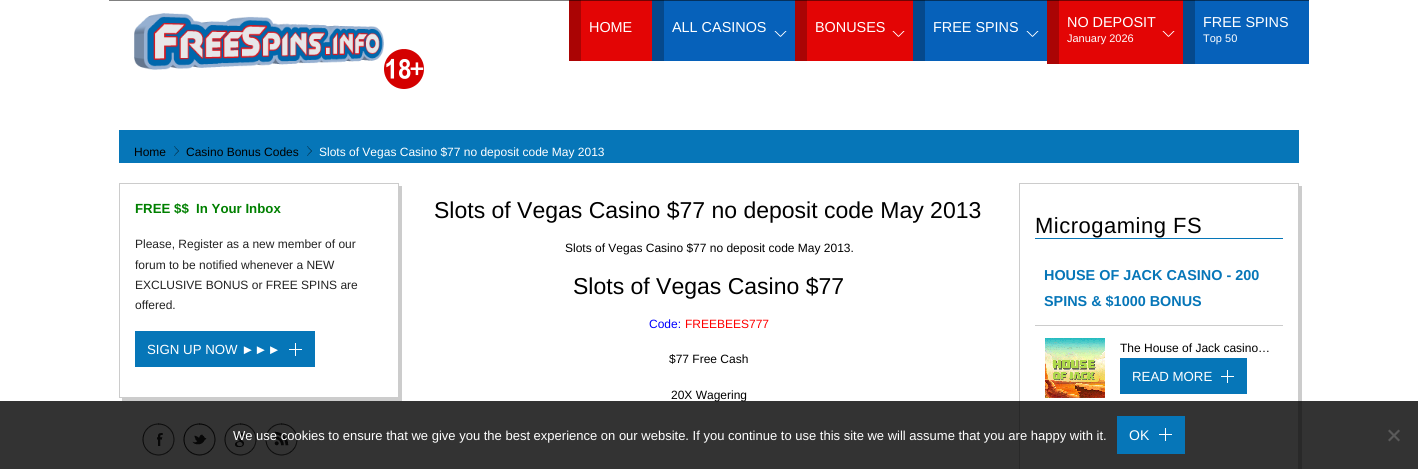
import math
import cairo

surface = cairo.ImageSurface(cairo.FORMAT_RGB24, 1418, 469)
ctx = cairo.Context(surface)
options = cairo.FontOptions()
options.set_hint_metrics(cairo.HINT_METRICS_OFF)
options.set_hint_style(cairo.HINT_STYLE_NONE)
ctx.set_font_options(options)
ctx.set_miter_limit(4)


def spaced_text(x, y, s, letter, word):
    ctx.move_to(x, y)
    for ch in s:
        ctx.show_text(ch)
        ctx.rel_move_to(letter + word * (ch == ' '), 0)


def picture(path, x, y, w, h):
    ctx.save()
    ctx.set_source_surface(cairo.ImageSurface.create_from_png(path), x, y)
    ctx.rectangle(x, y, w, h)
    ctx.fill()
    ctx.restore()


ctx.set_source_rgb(1, 1, 1)
ctx.paint()
ctx.set_source_rgb(0.502, 0.502, 0.502)
ctx.rectangle(109, 0, 460, 1)
ctx.fill()
picture("img1.png", 134, 13, 250, 57)
picture("img2.png", 384, 49, 40, 40)
ctx.set_source_rgb(0.89, 0.02, 0.02)
ctx.rectangle(581, 1, 71, 60)
ctx.fill()
ctx.set_source_rgb(0.447, 0.012, 0.012)
ctx.rectangle(581, 0, 71, 1)
ctx.fill()
ctx.set_source_rgb(0.667, 0.016, 0.016)
ctx.rectangle(569, 1, 12, 60)
ctx.fill()
ctx.set_source_rgb(0.333, 0.008, 0.008)
ctx.rectangle(569, 0, 12, 1)
ctx.fill()
ctx.select_font_face("Liberation Sans")
ctx.set_font_size(14.4)
ctx.set_source_rgb(1, 1, 1)
ctx.move_to(589, 32)
ctx.show_text("HOME")
ctx.set_source_rgb(0.027, 0.38, 0.729)
ctx.rectangle(664, 1, 131, 60)
ctx.fill()
ctx.set_source_rgb(0.016, 0.192, 0.365)
ctx.rectangle(664, 0, 131, 1)
ctx.fill()
ctx.set_source_rgb(0.02, 0.286, 0.549)
ctx.rectangle(652, 1, 12, 60)
ctx.fill()
ctx.set_source_rgb(0.012, 0.145, 0.275)
ctx.rectangle(652, 0, 12, 1)
ctx.fill()
ctx.set_source_rgb(1, 1, 1)
ctx.move_to(672, 32)
ctx.show_text("ALL CASINOS")
picture("img3.png", 774, 31, 13, 6)
ctx.set_source_rgb(0.89, 0.02, 0.02)
ctx.rectangle(807, 1, 106, 60)
ctx.fill()
ctx.set_source_rgb(0.447, 0.012, 0.012)
ctx.rectangle(807, 0, 106, 1)
ctx.fill()
ctx.set_source_rgb(0.667, 0.016, 0.016)
ctx.rectangle(795, 1, 12, 60)
ctx.fill()
ctx.set_source_rgb(0.333, 0.008, 0.008)
ctx.rectangle(795, 0, 12, 1)
ctx.fill()
ctx.set_source_rgb(1, 1, 1)
ctx.move_to(815, 32)
ctx.show_text("BONUSES")
picture("img4.png", 892, 31, 13, 6)
ctx.set_source_rgb(0.027, 0.38, 0.729)
ctx.rectangle(925, 1, 122, 60)
ctx.fill()
ctx.set_source_rgb(0.016, 0.192, 0.365)
ctx.rectangle(925, 0, 122, 1)
ctx.fill()
ctx.set_source_rgb(0.02, 0.286, 0.549)
ctx.rectangle(913, 1, 12, 60)
ctx.fill()
ctx.set_source_rgb(0.012, 0.145, 0.275)
ctx.rectangle(913, 0, 12, 1)
ctx.fill()
ctx.set_source_rgb(1, 1, 1)
ctx.move_to(933, 32)
ctx.show_text("FREE SPINS")
picture("img3.png", 1026, 31, 13, 6)
ctx.set_source_rgb(0.89, 0.02, 0.02)
ctx.rectangle(1059, 1, 124, 63)
ctx.fill()
ctx.set_source_rgb(0.447, 0.012, 0.012)
ctx.rectangle(1059, 0, 124, 1)
ctx.fill()
ctx.set_source_rgb(0.667, 0.016, 0.016)
ctx.rectangle(1047, 1, 12, 63)
ctx.fill()
ctx.set_source_rgb(0.333, 0.008, 0.008)
ctx.rectangle(1047, 0, 12, 1)
ctx.fill()
ctx.set_source_rgb(1, 1, 1)
ctx.move_to(1067, 27)
ctx.show_text("NO DEPOSIT")
ctx.set_font_size(11)
ctx.move_to(1067, 42)
ctx.show_text("January 2026")
picture("img4.png", 1162, 31, 13, 6)
ctx.set_source_rgb(0.027, 0.38, 0.729)
ctx.rectangle(1195, 1, 114, 63)
ctx.fill()
ctx.set_source_rgb(0.016, 0.192, 0.365)
ctx.rectangle(1195, 0, 114, 1)
ctx.fill()
ctx.set_source_rgb(0.02, 0.286, 0.549)
ctx.rectangle(1183, 1, 12, 63)
ctx.fill()
ctx.set_source_rgb(0.012, 0.145, 0.275)
ctx.rectangle(1183, 0, 12, 1)
ctx.fill()
ctx.set_font_size(14.4)
ctx.set_source_rgb(1, 1, 1)
ctx.move_to(1203, 27)
ctx.show_text("FREE SPINS")
ctx.set_font_size(11)
ctx.move_to(1203, 42)
ctx.show_text("Top 50")
ctx.set_source_rgb(0.024, 0.463, 0.722)
ctx.rectangle(119, 130, 1180, 33)
ctx.fill()
ctx.set_font_size(12)
ctx.set_source_rgb(0, 0, 0)
ctx.move_to(134, 156)
ctx.show_text("Home")
picture("img5.png", 174, 146, 5, 10)
ctx.move_to(186, 156)
ctx.show_text("Casino Bonus Codes")
picture("img5.png", 307, 146, 5, 10)
ctx.set_source_rgb(1, 1, 1)
ctx.move_to(319, 156)
ctx.show_text("Slots of Vegas Casino $77 no deposit code May 2013")
ctx.set_source_rgb(0.8, 0.8, 0.8)
ctx.new_path()
ctx.move_to(122, 398)
ctx.line_to(122, 401)
ctx.line_to(402, 401)
ctx.line_to(402, 186)
ctx.line_to(399, 186)
ctx.line_to(399, 398)
ctx.close_path()
ctx.fill()
ctx.rectangle(119.5, 183.5, 279, 214)
ctx.set_line_width(1)
ctx.stroke()
ctx.select_font_face("Liberation Sans", cairo.FONT_SLANT_NORMAL, cairo.FONT_WEIGHT_BOLD)
ctx.set_font_size(13.25)
ctx.set_source_rgb(0, 0.502, 0)
ctx.move_to(135, 213)
ctx.show_text("FREE $$  In Your Inbox")
ctx.select_font_face("Liberation Sans")
ctx.set_font_size(12)
ctx.set_source_rgb(0.133, 0.133, 0.133)
ctx.move_to(135, 248)
ctx.show_text("Please, Register as a new member of our")
ctx.move_to(135, 269)
ctx.show_text("forum to be notified whenever a NEW")
ctx.move_to(135, 289)
ctx.show_text("EXCLUSIVE BONUS or FREE SPINS are")
ctx.move_to(135, 309)
ctx.show_text("offered.")
ctx.set_source_rgb(0.024, 0.463, 0.722)
ctx.rectangle(135, 331, 180, 36)
ctx.fill()
ctx.set_font_size(13.25)
ctx.set_source_rgb(1, 1, 1)
ctx.move_to(147, 354)
ctx.show_text("SIGN UP NOW ►►►")
picture("img6.png", 289, 343, 13, 13)
picture("img7.png", 142, 423, 33, 33)
picture("img8.png", 183, 423, 33, 33)
picture("img9.png", 224, 423, 33, 33)
picture("img10.png", 265, 423, 33, 33)
ctx.set_font_size(23)
ctx.set_source_rgb(0, 0, 0)
ctx.move_to(434, 218)
ctx.show_text("Slots of Vegas Casino $77 no deposit code May 2013")
ctx.set_font_size(12)
ctx.move_to(565, 252)
ctx.show_text("Slots of Vegas Casino $77 no deposit code May 2013.")
ctx.set_font_size(23)
ctx.move_to(573, 294)
ctx.show_text("Slots of Vegas Casino $77")
ctx.set_font_size(12)
ctx.set_source_rgb(0, 0, 1)
ctx.move_to(649, 328)
ctx.show_text("Code:")
ctx.set_source_rgb(1, 0, 0)
ctx.move_to(685, 328)
ctx.show_text("FREEBEES777")
ctx.set_source_rgb(0, 0, 0)
ctx.move_to(669, 363)
ctx.show_text("$77 Free Cash")
ctx.move_to(671, 399)
ctx.show_text("20X Wagering")
ctx.set_source_rgb(0.8, 0.8, 0.8)
ctx.new_path()
ctx.move_to(1022, 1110)
ctx.line_to(1022, 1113)
ctx.line_to(1302, 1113)
ctx.line_to(1302, 186)
ctx.line_to(1299, 186)
ctx.line_to(1299, 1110)
ctx.close_path()
ctx.fill()
ctx.rectangle(1019.5, 183.5, 279, 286)
ctx.stroke()
ctx.set_source_rgb(0.024, 0.463, 0.722)
ctx.rectangle(1035, 238, 248, 1)
ctx.fill()
ctx.set_font_size(22)
ctx.set_source_rgb(0, 0, 0)
spaced_text(1035, 233, "Microgaming FS", 0.5, 0)
ctx.set_source_rgb(0.8, 0.8, 0.8)
ctx.rectangle(1035, 325, 248, 1)
ctx.fill()
ctx.select_font_face("Liberation Sans", cairo.FONT_SLANT_NORMAL, cairo.FONT_WEIGHT_BOLD)
ctx.set_font_size(14.4)
ctx.set_source_rgb(0.024, 0.463, 0.722)
ctx.move_to(1044, 280)
ctx.show_text("HOUSE OF JACK CASINO - 200")
ctx.move_to(1044, 306)
ctx.show_text("SPINS & $1000 BONUS")
picture("img11.png", 1045, 338, 60, 60)
ctx.select_font_face("Liberation Sans")
ctx.set_font_size(12)
ctx.set_source_rgb(0, 0, 0)
ctx.move_to(1120, 352)
ctx.show_text("The House of Jack casino…")
ctx.set_source_rgb(0.024, 0.463, 0.722)
ctx.rectangle(1120, 358, 127, 36)
ctx.fill()
ctx.set_font_size(13.25)
ctx.set_source_rgb(1, 1, 1)
ctx.move_to(1132, 381)
ctx.show_text("READ MORE")
picture("img6.png", 1221, 370, 13, 13)
ctx.set_source_rgba(0, 0, 0, 0.8)
ctx.rectangle(0, 401, 1418, 68)
ctx.fill()
ctx.set_font_size(13)
ctx.set_source_rgb(1, 1, 1)
ctx.move_to(233, 440)
ctx.show_text("We use cookies to ensure that we give you the best experience on our website. If you continue to use this site we will assume that you are happy with it.")
ctx.set_source_rgb(0.024, 0.463, 0.722)
ctx.rectangle(1117, 416, 68, 38)
ctx.fill()
ctx.set_font_size(14)
ctx.set_source_rgb(1, 1, 1)
ctx.move_to(1129, 440)
ctx.show_text("OK")
picture("img6.png", 1159, 428, 13, 13)
ctx.set_source_rgb(0.353, 0.353, 0.353)
ctx.new_path()
ctx.move_to(1398.5, 429.5)
ctx.line_to(1400, 431)
ctx.line_to(1389.5, 441.5)
ctx.line_to(1388, 440)
ctx.close_path()
ctx.fill()
ctx.new_path()
ctx.move_to(1388, 431)
ctx.line_to(1389.5, 429.5)
ctx.line_to(1400, 440)
ctx.line_to(1398.5, 441.5)
ctx.close_path()
ctx.fill()
surface.write_to_png("page.png")
